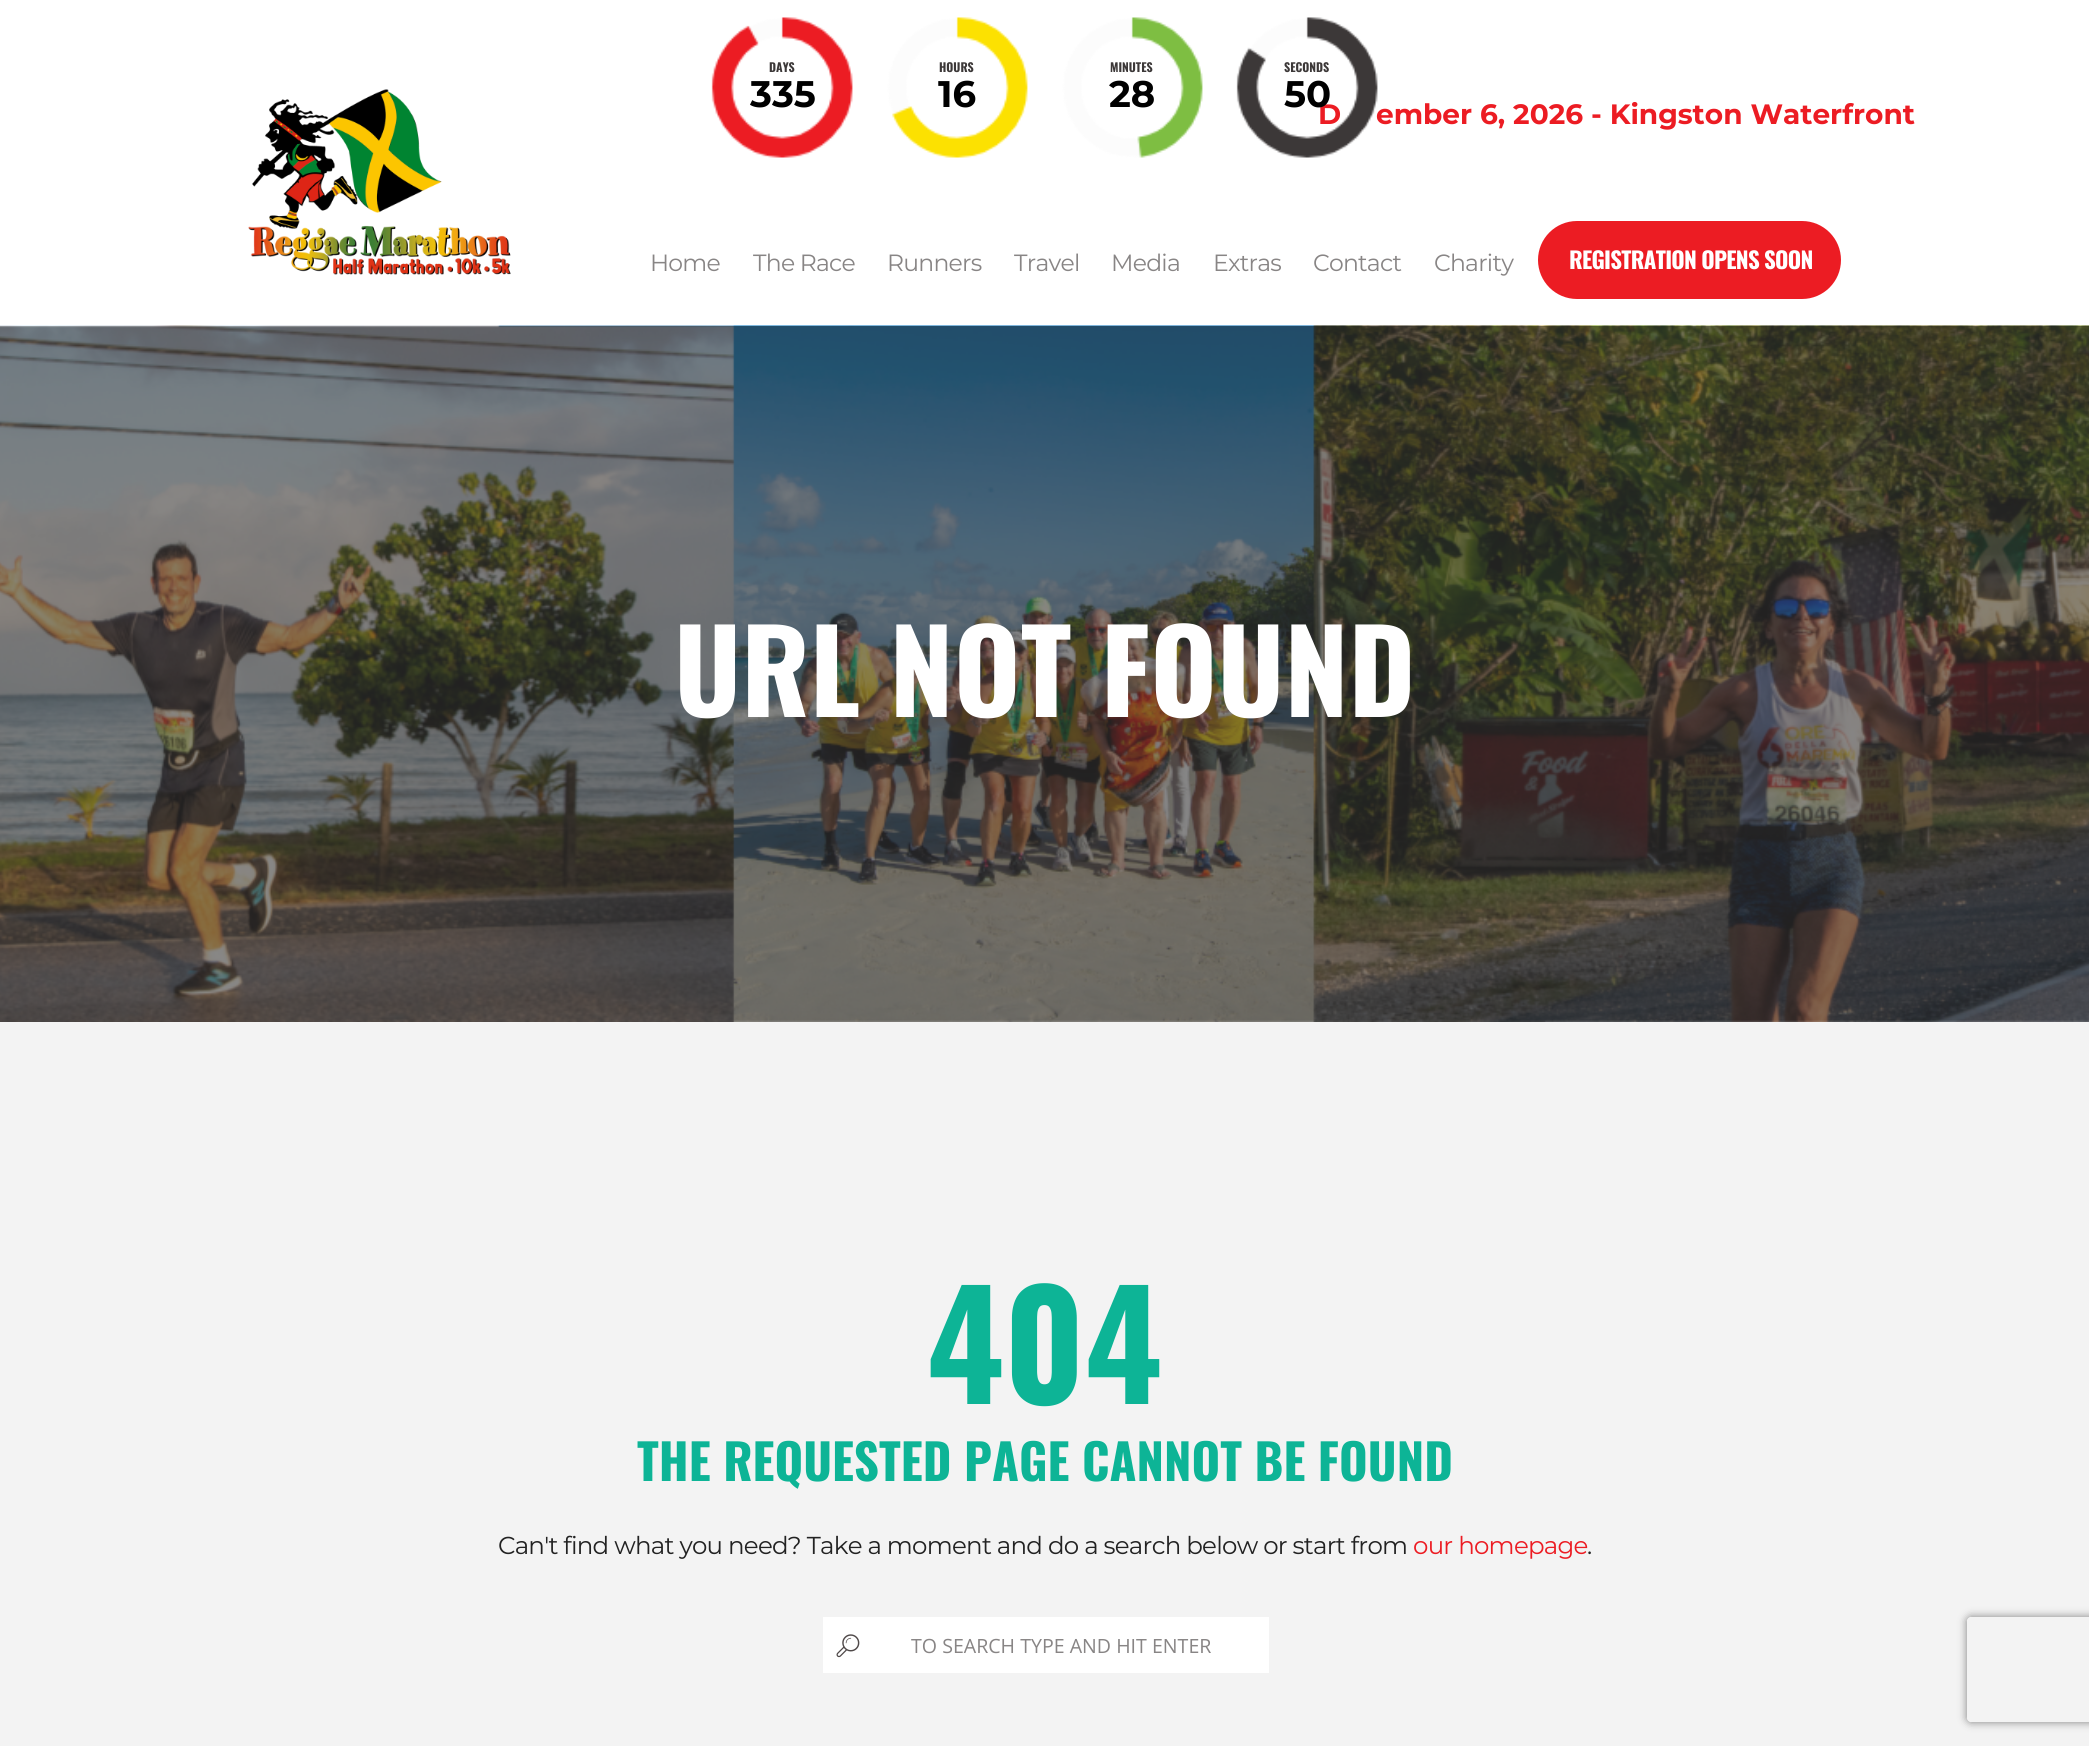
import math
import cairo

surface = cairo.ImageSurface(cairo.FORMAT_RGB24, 2089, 1746)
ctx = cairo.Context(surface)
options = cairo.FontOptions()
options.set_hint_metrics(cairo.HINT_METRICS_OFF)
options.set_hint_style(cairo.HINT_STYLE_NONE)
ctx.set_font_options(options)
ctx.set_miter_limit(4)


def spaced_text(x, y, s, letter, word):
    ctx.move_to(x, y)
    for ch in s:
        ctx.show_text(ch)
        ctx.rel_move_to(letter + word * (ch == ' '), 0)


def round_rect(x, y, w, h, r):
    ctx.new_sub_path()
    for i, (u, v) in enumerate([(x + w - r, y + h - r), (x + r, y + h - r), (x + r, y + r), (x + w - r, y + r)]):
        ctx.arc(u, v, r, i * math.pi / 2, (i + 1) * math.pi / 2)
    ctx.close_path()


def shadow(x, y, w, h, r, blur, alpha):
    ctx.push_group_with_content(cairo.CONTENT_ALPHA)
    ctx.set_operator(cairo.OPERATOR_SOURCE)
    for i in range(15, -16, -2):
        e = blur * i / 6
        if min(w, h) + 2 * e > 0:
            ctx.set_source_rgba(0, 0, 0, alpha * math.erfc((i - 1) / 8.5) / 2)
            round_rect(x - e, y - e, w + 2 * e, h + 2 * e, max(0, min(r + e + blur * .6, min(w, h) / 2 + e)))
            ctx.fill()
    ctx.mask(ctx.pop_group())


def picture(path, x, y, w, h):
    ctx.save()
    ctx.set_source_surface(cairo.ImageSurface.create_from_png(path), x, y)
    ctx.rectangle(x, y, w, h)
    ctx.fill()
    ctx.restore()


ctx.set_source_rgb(1, 1, 1)
ctx.paint()
ctx.select_font_face("Montserrat", cairo.FONT_SLANT_NORMAL, cairo.FONT_WEIGHT_BOLD)
ctx.set_font_size(28)
ctx.set_source_rgb(0.925, 0.11, 0.137)
ctx.move_to(1318, 124)
ctx.show_text("D")
ctx.move_to(1376, 124)
ctx.show_text("ember 6, 2026 - Kingston Waterfront")
picture("img1.png", 711, 17, 667, 141)
ctx.select_font_face("Oswald", cairo.FONT_SLANT_NORMAL, cairo.FONT_WEIGHT_BOLD)
ctx.set_font_size(12)
ctx.set_source_rgb(0.235, 0.22, 0.22)
ctx.move_to(769, 72)
ctx.show_text("DAYS")
ctx.select_font_face("Montserrat", cairo.FONT_SLANT_NORMAL, cairo.FONT_WEIGHT_BOLD)
ctx.set_font_size(37)
ctx.set_source_rgb(0, 0, 0)
ctx.move_to(750, 107)
ctx.show_text("335")
ctx.select_font_face("Oswald", cairo.FONT_SLANT_NORMAL, cairo.FONT_WEIGHT_BOLD)
ctx.set_font_size(12)
ctx.set_source_rgb(0.235, 0.22, 0.22)
ctx.move_to(939, 72)
ctx.show_text("HOURS")
ctx.select_font_face("Montserrat", cairo.FONT_SLANT_NORMAL, cairo.FONT_WEIGHT_BOLD)
ctx.set_font_size(37)
ctx.set_source_rgb(0, 0, 0)
ctx.move_to(938, 107)
ctx.show_text("16")
ctx.select_font_face("Oswald", cairo.FONT_SLANT_NORMAL, cairo.FONT_WEIGHT_BOLD)
ctx.set_font_size(12)
ctx.set_source_rgb(0.235, 0.22, 0.22)
ctx.move_to(1110, 72)
ctx.show_text("MINUTES")
ctx.select_font_face("Montserrat", cairo.FONT_SLANT_NORMAL, cairo.FONT_WEIGHT_BOLD)
ctx.set_font_size(37)
ctx.set_source_rgb(0, 0, 0)
ctx.move_to(1109, 107)
ctx.show_text("28")
ctx.select_font_face("Oswald", cairo.FONT_SLANT_NORMAL, cairo.FONT_WEIGHT_BOLD)
ctx.set_font_size(12)
ctx.set_source_rgb(0.235, 0.22, 0.22)
ctx.move_to(1284, 72)
ctx.show_text("SECONDS")
ctx.select_font_face("Montserrat", cairo.FONT_SLANT_NORMAL, cairo.FONT_WEIGHT_BOLD)
ctx.set_font_size(37)
ctx.set_source_rgb(0, 0, 0)
ctx.move_to(1284, 107)
ctx.show_text("50")
ctx.set_source_rgb(0.953, 0.953, 0.953)
ctx.rectangle(0, 326, 2089, 1420)
ctx.fill()
picture("img2.png", 248, 89, 263, 186)
ctx.select_font_face("Montserrat")
ctx.set_font_size(23.5)
ctx.set_source_rgb(0.533, 0.522, 0.522)
spaced_text(650, 271, "Home", -0.75, 0)
spaced_text(753, 271, "The Race", -0.75, 0)
spaced_text(887, 271, "Runners", -0.75, 0)
spaced_text(1014, 271, "Travel", -0.75, 0)
spaced_text(1111, 271, "Media", -0.75, 0)
spaced_text(1213, 271, "Extras", -0.75, 0)
spaced_text(1313, 271, "Contact", -0.75, 0)
spaced_text(1434, 271, "Charity", -0.75, 0)
ctx.set_source_rgb(0.925, 0.11, 0.137)
round_rect(1540, 223, 299, 74, 37)
ctx.fill_preserve()
ctx.set_line_width(4)
ctx.stroke()
ctx.select_font_face("Oswald", cairo.FONT_SLANT_NORMAL, cairo.FONT_WEIGHT_BOLD)
ctx.set_font_size(22.9)
ctx.set_source_rgb(1, 1, 1)
spaced_text(1569, 269, "REGISTRATION OPENS SOON", -0.73, 0)
picture("img3.png", 0, 325, 2089, 697)
ctx.set_font_size(114.25)
ctx.move_to(674, 717)
ctx.show_text("URL NOT FOUND")
ctx.set_font_size(147)
ctx.set_source_rgb(0.051, 0.706, 0.588)
ctx.move_to(927, 1404)
ctx.show_text("404")
ctx.set_font_size(49)
ctx.move_to(637, 1481)
ctx.show_text("THE REQUESTED PAGE CANNOT BE FOUND")
ctx.select_font_face("Montserrat")
ctx.set_font_size(24.5)
ctx.set_source_rgb(0.133, 0.133, 0.133)
spaced_text(498, 1554, "Can't find what you need? Take a moment and do a search below or start from", -0.73, 0)
ctx.set_source_rgb(0.925, 0.11, 0.137)
spaced_text(1413, 1554, "our homepage", -0.73, 0)
ctx.set_source_rgb(0.133, 0.133, 0.133)
spaced_text(1587, 1554, ".", -0.73, 0)
ctx.set_source_rgb(1, 1, 1)
ctx.rectangle(823, 1617, 446, 56)
ctx.fill()
picture("img4.png", 836, 1634, 24, 24)
ctx.select_font_face("Open Sans")
ctx.set_font_size(19.6)
ctx.set_source_rgb(0.533, 0.522, 0.522)
ctx.move_to(911, 1653)
ctx.show_text("TO SEARCH TYPE AND HIT ENTER")
ctx.save()
ctx.set_fill_rule(cairo.FILL_RULE_EVEN_ODD)
ctx.new_path()
ctx.move_to(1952, 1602)
ctx.line_to(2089, 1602)
ctx.line_to(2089, 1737)
ctx.line_to(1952, 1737)
ctx.close_path()
ctx.move_to(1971, 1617)
ctx.line_to(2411, 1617)
ctx.curve_to(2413, 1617, 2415, 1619, 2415, 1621)
ctx.line_to(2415, 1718)
ctx.curve_to(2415, 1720, 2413, 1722, 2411, 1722)
ctx.line_to(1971, 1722)
ctx.curve_to(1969, 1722, 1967, 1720, 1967, 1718)
ctx.line_to(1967, 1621)
ctx.curve_to(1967, 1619, 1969, 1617, 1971, 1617)
ctx.close_path()
ctx.clip()
ctx.set_source_rgb(0.502, 0.502, 0.502)
shadow(1967, 1617, 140, 105, 4, 4.5, 1)
ctx.restore()
surface.write_to_png("page.png")
